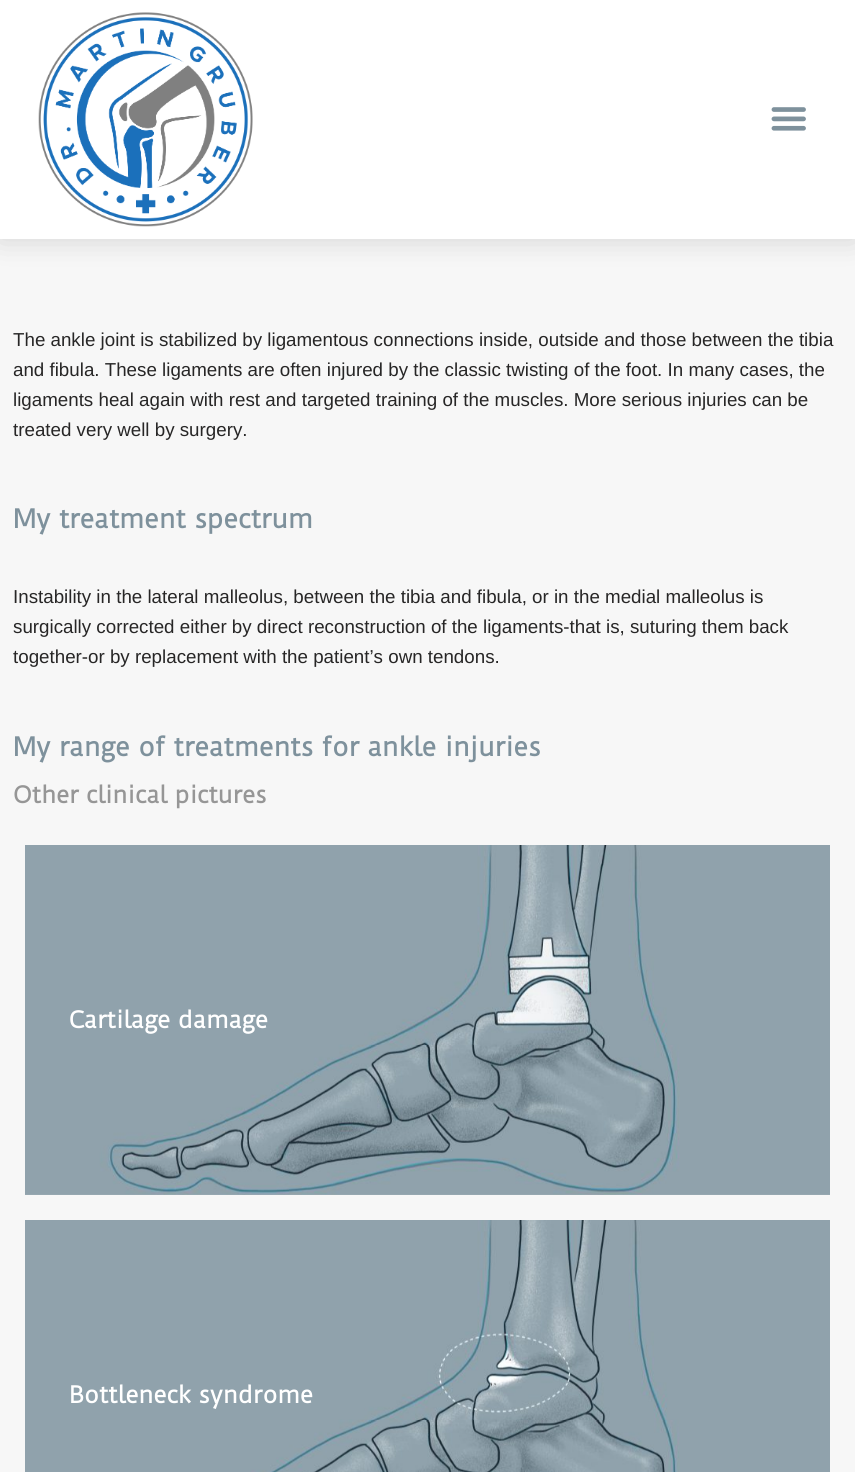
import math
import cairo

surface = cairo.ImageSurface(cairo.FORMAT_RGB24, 855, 1472)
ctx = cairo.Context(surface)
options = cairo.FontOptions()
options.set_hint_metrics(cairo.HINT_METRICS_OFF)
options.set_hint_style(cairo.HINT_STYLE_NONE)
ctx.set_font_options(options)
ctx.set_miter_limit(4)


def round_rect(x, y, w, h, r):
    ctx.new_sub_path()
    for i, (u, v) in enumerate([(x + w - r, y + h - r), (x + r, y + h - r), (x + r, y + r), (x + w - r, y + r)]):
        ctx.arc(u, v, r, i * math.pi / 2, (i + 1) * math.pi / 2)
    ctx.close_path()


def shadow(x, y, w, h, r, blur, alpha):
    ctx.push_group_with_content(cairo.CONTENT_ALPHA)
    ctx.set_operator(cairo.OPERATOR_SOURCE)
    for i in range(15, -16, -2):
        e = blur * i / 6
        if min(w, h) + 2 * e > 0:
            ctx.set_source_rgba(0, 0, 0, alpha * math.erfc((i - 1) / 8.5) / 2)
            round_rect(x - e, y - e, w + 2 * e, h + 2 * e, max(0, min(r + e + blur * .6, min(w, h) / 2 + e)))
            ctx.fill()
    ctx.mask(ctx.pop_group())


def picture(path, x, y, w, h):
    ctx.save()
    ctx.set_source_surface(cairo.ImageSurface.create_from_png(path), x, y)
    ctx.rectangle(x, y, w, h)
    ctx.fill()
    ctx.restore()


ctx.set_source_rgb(0.965, 0.965, 0.965)
ctx.paint()
ctx.set_source_rgb(0, 0, 0)
shadow(0, 0, 855, 239, 0, 15, 0.15)
ctx.set_source_rgb(1, 1, 1)
ctx.rectangle(0, 0, 855, 239)
ctx.fill()
picture("img1.png", 38, 12, 215, 215)
picture("img2.png", 771, 107, 35, 24)
ctx.select_font_face("Liberation Sans")
ctx.set_font_size(18.75)
ctx.set_source_rgb(0.153, 0.149, 0.149)
ctx.move_to(13, 346)
ctx.show_text("The ankle joint is stabilized by ligamentous connections inside, outside and those between the tibia")
ctx.move_to(13, 376)
ctx.show_text("and fibula. These ligaments are often injured by the classic twisting of the foot. In many cases, the")
ctx.move_to(13, 406)
ctx.show_text("ligaments heal again with rest and targeted training of the muscles. More serious injuries can be")
ctx.move_to(13, 436)
ctx.show_text("treated very well by surgery.")
ctx.select_font_face("Duru Sans", cairo.FONT_SLANT_NORMAL, cairo.FONT_WEIGHT_BOLD)
ctx.set_font_size(25)
ctx.set_source_rgb(0.494, 0.569, 0.612)
ctx.move_to(13, 528)
ctx.show_text("My treatment spectrum")
ctx.select_font_face("Liberation Sans")
ctx.set_font_size(18.75)
ctx.set_source_rgb(0.153, 0.149, 0.149)
ctx.move_to(13, 603)
ctx.show_text("Instability in the lateral malleolus, between the tibia and fibula, or in the medial malleolus is")
ctx.move_to(13, 633)
ctx.show_text("surgically corrected either by direct reconstruction of the ligaments-that is, suturing them back")
ctx.move_to(13, 663)
ctx.show_text("together-or by replacement with the patient’s own tendons.")
ctx.select_font_face("Duru Sans", cairo.FONT_SLANT_NORMAL, cairo.FONT_WEIGHT_BOLD)
ctx.set_font_size(25)
ctx.set_source_rgb(0.494, 0.569, 0.612)
ctx.move_to(13, 756)
ctx.show_text("My range of treatments for ankle injuries")
ctx.set_font_size(22.5)
ctx.set_source_rgb(0.588, 0.588, 0.588)
ctx.move_to(13, 803)
ctx.show_text("Other clinical pictures")
picture("img3.png", 25, 845, 805, 350)
ctx.set_source_rgb(1, 1, 1)
ctx.move_to(69, 1028)
ctx.show_text("Cartilage damage")
picture("img4.png", 25, 1220, 805, 252)
ctx.move_to(69, 1403)
ctx.show_text("Bottleneck syndrome")
surface.write_to_png("page.png")
